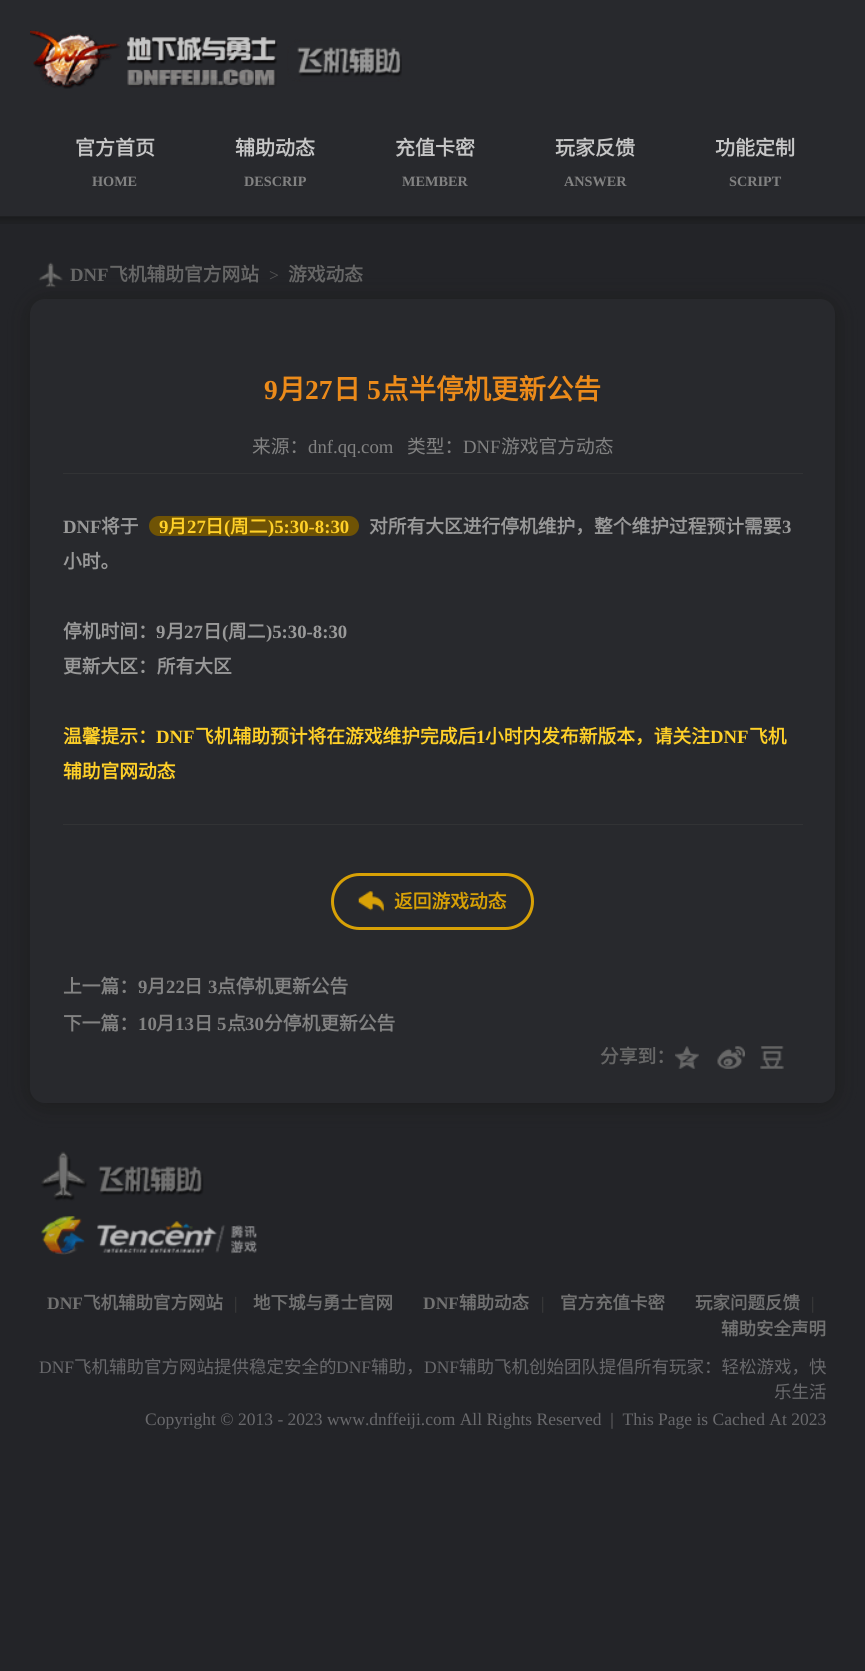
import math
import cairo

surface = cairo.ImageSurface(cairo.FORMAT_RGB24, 865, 1671)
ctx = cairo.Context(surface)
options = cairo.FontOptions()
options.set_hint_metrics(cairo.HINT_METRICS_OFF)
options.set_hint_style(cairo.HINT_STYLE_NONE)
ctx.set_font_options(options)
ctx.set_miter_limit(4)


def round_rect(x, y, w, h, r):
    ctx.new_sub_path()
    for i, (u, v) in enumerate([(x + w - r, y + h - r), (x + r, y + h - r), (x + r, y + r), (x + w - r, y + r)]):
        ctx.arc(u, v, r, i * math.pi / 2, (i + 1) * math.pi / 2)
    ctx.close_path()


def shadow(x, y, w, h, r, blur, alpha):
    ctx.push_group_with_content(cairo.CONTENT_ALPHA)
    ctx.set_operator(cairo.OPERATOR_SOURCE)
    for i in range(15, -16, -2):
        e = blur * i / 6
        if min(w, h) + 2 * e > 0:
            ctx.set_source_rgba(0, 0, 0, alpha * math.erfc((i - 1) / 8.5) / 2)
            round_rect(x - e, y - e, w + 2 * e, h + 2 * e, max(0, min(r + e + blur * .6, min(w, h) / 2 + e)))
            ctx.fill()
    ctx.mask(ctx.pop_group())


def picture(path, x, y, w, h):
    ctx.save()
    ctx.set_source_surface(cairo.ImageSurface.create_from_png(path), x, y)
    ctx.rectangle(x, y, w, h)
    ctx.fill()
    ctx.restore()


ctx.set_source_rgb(0.137, 0.141, 0.157)
ctx.paint()
ctx.set_source_rgb(0.157, 0.161, 0.176)
ctx.rectangle(0, 0, 865, 215)
ctx.fill()
picture("img1.png", 30, 30, 372, 59)
picture("img2.png", 30, 30, 247, 59)
ctx.select_font_face("Noto Sans CJK SC", cairo.FONT_SLANT_NORMAL, cairo.FONT_WEIGHT_BOLD)
ctx.set_font_size(20)
ctx.set_source_rgb(0.776, 0.776, 0.776)
ctx.move_to(75, 155)
ctx.show_text("官方首页")
ctx.select_font_face("Liberation Serif", cairo.FONT_SLANT_NORMAL, cairo.FONT_WEIGHT_BOLD)
ctx.set_font_size(14.25)
ctx.set_source_rgb(0.51, 0.51, 0.51)
ctx.move_to(92, 186)
ctx.show_text("HOME")
ctx.select_font_face("Noto Sans CJK SC", cairo.FONT_SLANT_NORMAL, cairo.FONT_WEIGHT_BOLD)
ctx.set_font_size(20)
ctx.set_source_rgb(0.776, 0.776, 0.776)
ctx.move_to(235, 155)
ctx.show_text("辅助动态")
ctx.select_font_face("Liberation Serif", cairo.FONT_SLANT_NORMAL, cairo.FONT_WEIGHT_BOLD)
ctx.set_font_size(14.25)
ctx.set_source_rgb(0.51, 0.51, 0.51)
ctx.move_to(244, 186)
ctx.show_text("DESCRIP")
ctx.select_font_face("Noto Sans CJK SC", cairo.FONT_SLANT_NORMAL, cairo.FONT_WEIGHT_BOLD)
ctx.set_font_size(20)
ctx.set_source_rgb(0.776, 0.776, 0.776)
ctx.move_to(395, 155)
ctx.show_text("充值卡密")
ctx.select_font_face("Liberation Serif", cairo.FONT_SLANT_NORMAL, cairo.FONT_WEIGHT_BOLD)
ctx.set_font_size(14.25)
ctx.set_source_rgb(0.51, 0.51, 0.51)
ctx.move_to(402, 186)
ctx.show_text("MEMBER")
ctx.select_font_face("Noto Sans CJK SC", cairo.FONT_SLANT_NORMAL, cairo.FONT_WEIGHT_BOLD)
ctx.set_font_size(20)
ctx.set_source_rgb(0.776, 0.776, 0.776)
ctx.move_to(555, 155)
ctx.show_text("玩家反馈")
ctx.select_font_face("Liberation Serif", cairo.FONT_SLANT_NORMAL, cairo.FONT_WEIGHT_BOLD)
ctx.set_font_size(14.25)
ctx.set_source_rgb(0.51, 0.51, 0.51)
ctx.move_to(564, 186)
ctx.show_text("ANSWER")
ctx.select_font_face("Noto Sans CJK SC", cairo.FONT_SLANT_NORMAL, cairo.FONT_WEIGHT_BOLD)
ctx.set_font_size(20)
ctx.set_source_rgb(0.776, 0.776, 0.776)
ctx.move_to(715, 155)
ctx.show_text("功能定制")
ctx.select_font_face("Liberation Serif", cairo.FONT_SLANT_NORMAL, cairo.FONT_WEIGHT_BOLD)
ctx.set_font_size(14.25)
ctx.set_source_rgb(0.51, 0.51, 0.51)
ctx.move_to(729, 186)
ctx.show_text("SCRIPT")
picture("img3.png", 0, 215, 865, 9)
picture("img4.png", 38, 262, 25, 26)
ctx.set_source_rgb(0.114, 0.114, 0.114)
shadow(29, 300, 807, 806, 16, 10, 1)
ctx.set_font_size(18.75)
ctx.set_source_rgb(0.4, 0.4, 0.4)
ctx.move_to(70, 281)
ctx.show_text("DNF")
ctx.select_font_face("Noto Sans CJK SC", cairo.FONT_SLANT_NORMAL, cairo.FONT_WEIGHT_BOLD)
ctx.move_to(109, 281)
ctx.show_text("飞机辅助官方网站")
ctx.select_font_face("Liberation Serif")
ctx.set_font_size(17.5)
ctx.set_source_rgb(0.333, 0.333, 0.333)
ctx.move_to(269, 281)
ctx.show_text(">")
ctx.select_font_face("Noto Sans CJK SC", cairo.FONT_SLANT_NORMAL, cairo.FONT_WEIGHT_BOLD)
ctx.set_font_size(18.75)
ctx.set_source_rgb(0.4, 0.4, 0.4)
ctx.move_to(288, 281)
ctx.show_text("游戏动态")
ctx.set_source_rgb(0.157, 0.161, 0.176)
round_rect(30, 299, 805, 804, 15)
ctx.fill()
ctx.select_font_face("Liberation Serif", cairo.FONT_SLANT_NORMAL, cairo.FONT_WEIGHT_BOLD)
ctx.set_font_size(27.5)
ctx.set_source_rgb(0.925, 0.545, 0.102)
ctx.move_to(264, 399)
ctx.show_text("9")
ctx.select_font_face("Noto Sans CJK SC", cairo.FONT_SLANT_NORMAL, cairo.FONT_WEIGHT_BOLD)
ctx.move_to(278, 399)
ctx.show_text("月")
ctx.select_font_face("Liberation Serif", cairo.FONT_SLANT_NORMAL, cairo.FONT_WEIGHT_BOLD)
ctx.move_to(305, 399)
ctx.show_text("27")
ctx.select_font_face("Noto Sans CJK SC", cairo.FONT_SLANT_NORMAL, cairo.FONT_WEIGHT_BOLD)
ctx.move_to(333, 399)
ctx.show_text("日")
ctx.select_font_face("Liberation Serif", cairo.FONT_SLANT_NORMAL, cairo.FONT_WEIGHT_BOLD)
ctx.move_to(367, 399)
ctx.show_text("5")
ctx.select_font_face("Noto Sans CJK SC", cairo.FONT_SLANT_NORMAL, cairo.FONT_WEIGHT_BOLD)
ctx.move_to(381, 399)
ctx.show_text("点半停机更新公告")
ctx.set_source_rgb(0.196, 0.2, 0.208)
ctx.rectangle(63, 473, 740, 1)
ctx.fill()
ctx.select_font_face("Noto Sans CJK SC")
ctx.set_font_size(18.75)
ctx.set_source_rgb(0.51, 0.51, 0.51)
ctx.move_to(252, 453)
ctx.show_text("来源：")
ctx.select_font_face("Liberation Serif")
ctx.move_to(308, 453)
ctx.show_text("dnf.qq.com")
ctx.select_font_face("Noto Sans CJK SC")
ctx.move_to(407, 453)
ctx.show_text("类型：")
ctx.select_font_face("Liberation Serif")
ctx.move_to(463, 453)
ctx.show_text("DNF")
ctx.select_font_face("Noto Sans CJK SC")
ctx.move_to(501, 453)
ctx.show_text("游戏官方动态")
ctx.select_font_face("Liberation Serif", cairo.FONT_SLANT_NORMAL, cairo.FONT_WEIGHT_BOLD)
ctx.set_source_rgb(0.6, 0.6, 0.6)
ctx.move_to(63, 533)
ctx.show_text("DNF")
ctx.select_font_face("Noto Sans CJK SC", cairo.FONT_SLANT_NORMAL, cairo.FONT_WEIGHT_BOLD)
ctx.move_to(101, 533)
ctx.show_text("将于")
ctx.set_source_rgb(0.435, 0.325, 0.02)
round_rect(149, 516, 210, 20, 10)
ctx.fill()
ctx.select_font_face("Liberation Serif", cairo.FONT_SLANT_NORMAL, cairo.FONT_WEIGHT_BOLD)
ctx.set_source_rgb(1, 0.816, 0.157)
ctx.move_to(159, 533)
ctx.show_text("9")
ctx.select_font_face("Noto Sans CJK SC", cairo.FONT_SLANT_NORMAL, cairo.FONT_WEIGHT_BOLD)
ctx.move_to(168, 533)
ctx.show_text("月")
ctx.select_font_face("Liberation Serif", cairo.FONT_SLANT_NORMAL, cairo.FONT_WEIGHT_BOLD)
ctx.move_to(187, 533)
ctx.show_text("27")
ctx.select_font_face("Noto Sans CJK SC", cairo.FONT_SLANT_NORMAL, cairo.FONT_WEIGHT_BOLD)
ctx.move_to(205, 533)
ctx.show_text("日")
ctx.select_font_face("Liberation Serif", cairo.FONT_SLANT_NORMAL, cairo.FONT_WEIGHT_BOLD)
ctx.move_to(224, 533)
ctx.show_text("(")
ctx.select_font_face("Noto Sans CJK SC", cairo.FONT_SLANT_NORMAL, cairo.FONT_WEIGHT_BOLD)
ctx.move_to(230, 533)
ctx.show_text("周二")
ctx.select_font_face("Liberation Serif", cairo.FONT_SLANT_NORMAL, cairo.FONT_WEIGHT_BOLD)
ctx.move_to(268, 533)
ctx.show_text(")5:30-8:30")
ctx.select_font_face("Noto Sans CJK SC", cairo.FONT_SLANT_NORMAL, cairo.FONT_WEIGHT_BOLD)
ctx.set_source_rgb(0.6, 0.6, 0.6)
ctx.move_to(369, 533)
ctx.show_text("对所有大区进行停机维护，整个维护过程预计需要")
ctx.select_font_face("Liberation Serif", cairo.FONT_SLANT_NORMAL, cairo.FONT_WEIGHT_BOLD)
ctx.move_to(782, 533)
ctx.show_text("3")
ctx.select_font_face("Noto Sans CJK SC", cairo.FONT_SLANT_NORMAL, cairo.FONT_WEIGHT_BOLD)
ctx.move_to(63, 568)
ctx.show_text("小时。")
ctx.move_to(63, 638)
ctx.show_text("停机时间：")
ctx.select_font_face("Liberation Serif", cairo.FONT_SLANT_NORMAL, cairo.FONT_WEIGHT_BOLD)
ctx.move_to(156, 638)
ctx.show_text("9")
ctx.select_font_face("Noto Sans CJK SC", cairo.FONT_SLANT_NORMAL, cairo.FONT_WEIGHT_BOLD)
ctx.move_to(166, 638)
ctx.show_text("月")
ctx.select_font_face("Liberation Serif", cairo.FONT_SLANT_NORMAL, cairo.FONT_WEIGHT_BOLD)
ctx.move_to(184, 638)
ctx.show_text("27")
ctx.select_font_face("Noto Sans CJK SC", cairo.FONT_SLANT_NORMAL, cairo.FONT_WEIGHT_BOLD)
ctx.move_to(203, 638)
ctx.show_text("日")
ctx.select_font_face("Liberation Serif", cairo.FONT_SLANT_NORMAL, cairo.FONT_WEIGHT_BOLD)
ctx.move_to(222, 638)
ctx.show_text("(")
ctx.select_font_face("Noto Sans CJK SC", cairo.FONT_SLANT_NORMAL, cairo.FONT_WEIGHT_BOLD)
ctx.move_to(228, 638)
ctx.show_text("周二")
ctx.select_font_face("Liberation Serif", cairo.FONT_SLANT_NORMAL, cairo.FONT_WEIGHT_BOLD)
ctx.move_to(266, 638)
ctx.show_text(")5:30-8:30")
ctx.select_font_face("Noto Sans CJK SC", cairo.FONT_SLANT_NORMAL, cairo.FONT_WEIGHT_BOLD)
ctx.move_to(63, 673)
ctx.show_text("更新大区：所有大区")
ctx.set_source_rgb(1, 0.816, 0.157)
ctx.move_to(63, 743)
ctx.show_text("温馨提示：")
ctx.select_font_face("Liberation Serif", cairo.FONT_SLANT_NORMAL, cairo.FONT_WEIGHT_BOLD)
ctx.move_to(156, 743)
ctx.show_text("DNF")
ctx.select_font_face("Noto Sans CJK SC", cairo.FONT_SLANT_NORMAL, cairo.FONT_WEIGHT_BOLD)
ctx.move_to(195, 743)
ctx.show_text("飞机辅助预计将在游戏维护完成后")
ctx.select_font_face("Liberation Serif", cairo.FONT_SLANT_NORMAL, cairo.FONT_WEIGHT_BOLD)
ctx.move_to(476, 743)
ctx.show_text("1")
ctx.select_font_face("Noto Sans CJK SC", cairo.FONT_SLANT_NORMAL, cairo.FONT_WEIGHT_BOLD)
ctx.move_to(485, 743)
ctx.show_text("小时内发布新版本，请关注")
ctx.select_font_face("Liberation Serif", cairo.FONT_SLANT_NORMAL, cairo.FONT_WEIGHT_BOLD)
ctx.move_to(710, 743)
ctx.show_text("DNF")
ctx.select_font_face("Noto Sans CJK SC", cairo.FONT_SLANT_NORMAL, cairo.FONT_WEIGHT_BOLD)
ctx.move_to(749, 743)
ctx.show_text("飞机")
ctx.move_to(63, 778)
ctx.show_text("辅助官网动态")
ctx.set_source_rgb(0.196, 0.2, 0.208)
ctx.rectangle(63, 824, 740, 1)
ctx.fill()
round_rect(332.5, 874.5, 200, 54, 27)
ctx.set_source_rgb(0.847, 0.631, 0.027)
ctx.set_line_width(3)
ctx.stroke()
picture("img5.png", 358, 891, 26, 21)
ctx.move_to(394, 908)
ctx.show_text("返回游戏动态")
ctx.set_source_rgb(0.51, 0.51, 0.51)
ctx.move_to(63, 993)
ctx.show_text("上一篇：")
ctx.select_font_face("Liberation Serif", cairo.FONT_SLANT_NORMAL, cairo.FONT_WEIGHT_BOLD)
ctx.move_to(138, 993)
ctx.show_text("9")
ctx.select_font_face("Noto Sans CJK SC", cairo.FONT_SLANT_NORMAL, cairo.FONT_WEIGHT_BOLD)
ctx.move_to(147, 993)
ctx.show_text("月")
ctx.select_font_face("Liberation Serif", cairo.FONT_SLANT_NORMAL, cairo.FONT_WEIGHT_BOLD)
ctx.move_to(166, 993)
ctx.show_text("22")
ctx.select_font_face("Noto Sans CJK SC", cairo.FONT_SLANT_NORMAL, cairo.FONT_WEIGHT_BOLD)
ctx.move_to(184, 993)
ctx.show_text("日")
ctx.select_font_face("Liberation Serif", cairo.FONT_SLANT_NORMAL, cairo.FONT_WEIGHT_BOLD)
ctx.move_to(208, 993)
ctx.show_text("3")
ctx.select_font_face("Noto Sans CJK SC", cairo.FONT_SLANT_NORMAL, cairo.FONT_WEIGHT_BOLD)
ctx.move_to(217, 993)
ctx.show_text("点停机更新公告")
ctx.move_to(63, 1030)
ctx.show_text("下一篇：")
ctx.select_font_face("Liberation Serif", cairo.FONT_SLANT_NORMAL, cairo.FONT_WEIGHT_BOLD)
ctx.move_to(138, 1030)
ctx.show_text("10")
ctx.select_font_face("Noto Sans CJK SC", cairo.FONT_SLANT_NORMAL, cairo.FONT_WEIGHT_BOLD)
ctx.move_to(156, 1030)
ctx.show_text("月")
ctx.select_font_face("Liberation Serif", cairo.FONT_SLANT_NORMAL, cairo.FONT_WEIGHT_BOLD)
ctx.move_to(175, 1030)
ctx.show_text("13")
ctx.select_font_face("Noto Sans CJK SC", cairo.FONT_SLANT_NORMAL, cairo.FONT_WEIGHT_BOLD)
ctx.move_to(194, 1030)
ctx.show_text("日")
ctx.select_font_face("Liberation Serif", cairo.FONT_SLANT_NORMAL, cairo.FONT_WEIGHT_BOLD)
ctx.move_to(217, 1030)
ctx.show_text("5")
ctx.select_font_face("Noto Sans CJK SC", cairo.FONT_SLANT_NORMAL, cairo.FONT_WEIGHT_BOLD)
ctx.move_to(227, 1030)
ctx.show_text("点")
ctx.select_font_face("Liberation Serif", cairo.FONT_SLANT_NORMAL, cairo.FONT_WEIGHT_BOLD)
ctx.move_to(245, 1030)
ctx.show_text("30")
ctx.select_font_face("Noto Sans CJK SC", cairo.FONT_SLANT_NORMAL, cairo.FONT_WEIGHT_BOLD)
ctx.move_to(264, 1030)
ctx.show_text("分停机更新公告")
ctx.set_source_rgb(0.4, 0.4, 0.4)
ctx.move_to(600, 1063)
ctx.show_text("分享到：")
picture("img6.png", 675, 1046, 24, 23)
picture("img7.png", 717, 1046, 28, 23)
picture("img8.png", 760, 1046, 24, 23)
picture("img9.png", 41, 1151, 216, 104)
ctx.select_font_face("Liberation Serif", cairo.FONT_SLANT_NORMAL, cairo.FONT_WEIGHT_BOLD)
ctx.set_font_size(17.5)
ctx.set_source_rgb(0.443, 0.443, 0.443)
ctx.move_to(47, 1309)
ctx.show_text("DNF")
ctx.select_font_face("Noto Sans CJK SC", cairo.FONT_SLANT_NORMAL, cairo.FONT_WEIGHT_BOLD)
ctx.move_to(83, 1309)
ctx.show_text("飞机辅助官方网站")
ctx.select_font_face("Liberation Serif")
ctx.set_source_rgb(0.243, 0.243, 0.243)
ctx.move_to(234, 1309)
ctx.show_text("|")
ctx.select_font_face("Noto Sans CJK SC", cairo.FONT_SLANT_NORMAL, cairo.FONT_WEIGHT_BOLD)
ctx.set_source_rgb(0.443, 0.443, 0.443)
ctx.move_to(253, 1309)
ctx.show_text("地下城与勇士官网")
ctx.select_font_face("Liberation Serif", cairo.FONT_SLANT_NORMAL, cairo.FONT_WEIGHT_BOLD)
ctx.move_to(423, 1309)
ctx.show_text("DNF")
ctx.select_font_face("Noto Sans CJK SC", cairo.FONT_SLANT_NORMAL, cairo.FONT_WEIGHT_BOLD)
ctx.move_to(459, 1309)
ctx.show_text("辅助动态")
ctx.select_font_face("Liberation Serif")
ctx.set_source_rgb(0.243, 0.243, 0.243)
ctx.move_to(541, 1309)
ctx.show_text("|")
ctx.select_font_face("Noto Sans CJK SC", cairo.FONT_SLANT_NORMAL, cairo.FONT_WEIGHT_BOLD)
ctx.set_source_rgb(0.443, 0.443, 0.443)
ctx.move_to(560, 1309)
ctx.show_text("官方充值卡密")
ctx.move_to(695, 1309)
ctx.show_text("玩家问题反馈")
ctx.select_font_face("Liberation Serif")
ctx.set_source_rgb(0.243, 0.243, 0.243)
ctx.move_to(811, 1309)
ctx.show_text("|")
ctx.select_font_face("Noto Sans CJK SC", cairo.FONT_SLANT_NORMAL, cairo.FONT_WEIGHT_BOLD)
ctx.set_source_rgb(0.443, 0.443, 0.443)
ctx.move_to(721, 1335)
ctx.show_text("辅助安全声明")
ctx.select_font_face("Liberation Serif")
ctx.set_source_rgb(0.412, 0.412, 0.424)
ctx.move_to(39, 1373)
ctx.show_text("DNF")
ctx.select_font_face("Noto Sans CJK SC")
ctx.move_to(74, 1373)
ctx.show_text("飞机辅助官方网站提供稳定安全的")
ctx.select_font_face("Liberation Serif")
ctx.move_to(336, 1373)
ctx.show_text("DNF")
ctx.select_font_face("Noto Sans CJK SC")
ctx.move_to(371, 1373)
ctx.show_text("辅助，")
ctx.select_font_face("Liberation Serif")
ctx.move_to(424, 1373)
ctx.show_text("DNF")
ctx.select_font_face("Noto Sans CJK SC")
ctx.move_to(459, 1373)
ctx.show_text("辅助飞机创始团队提倡所有玩家：轻松游戏，快")
ctx.move_to(774, 1398)
ctx.show_text("乐生活")
ctx.select_font_face("Liberation Serif")
ctx.move_to(145, 1425)
ctx.show_text("Copyright © 2013 - 2023 www.dnffeiji.com All Rights Reserved  |  This Page is Cached At 2023")
surface.write_to_png("page.png")
